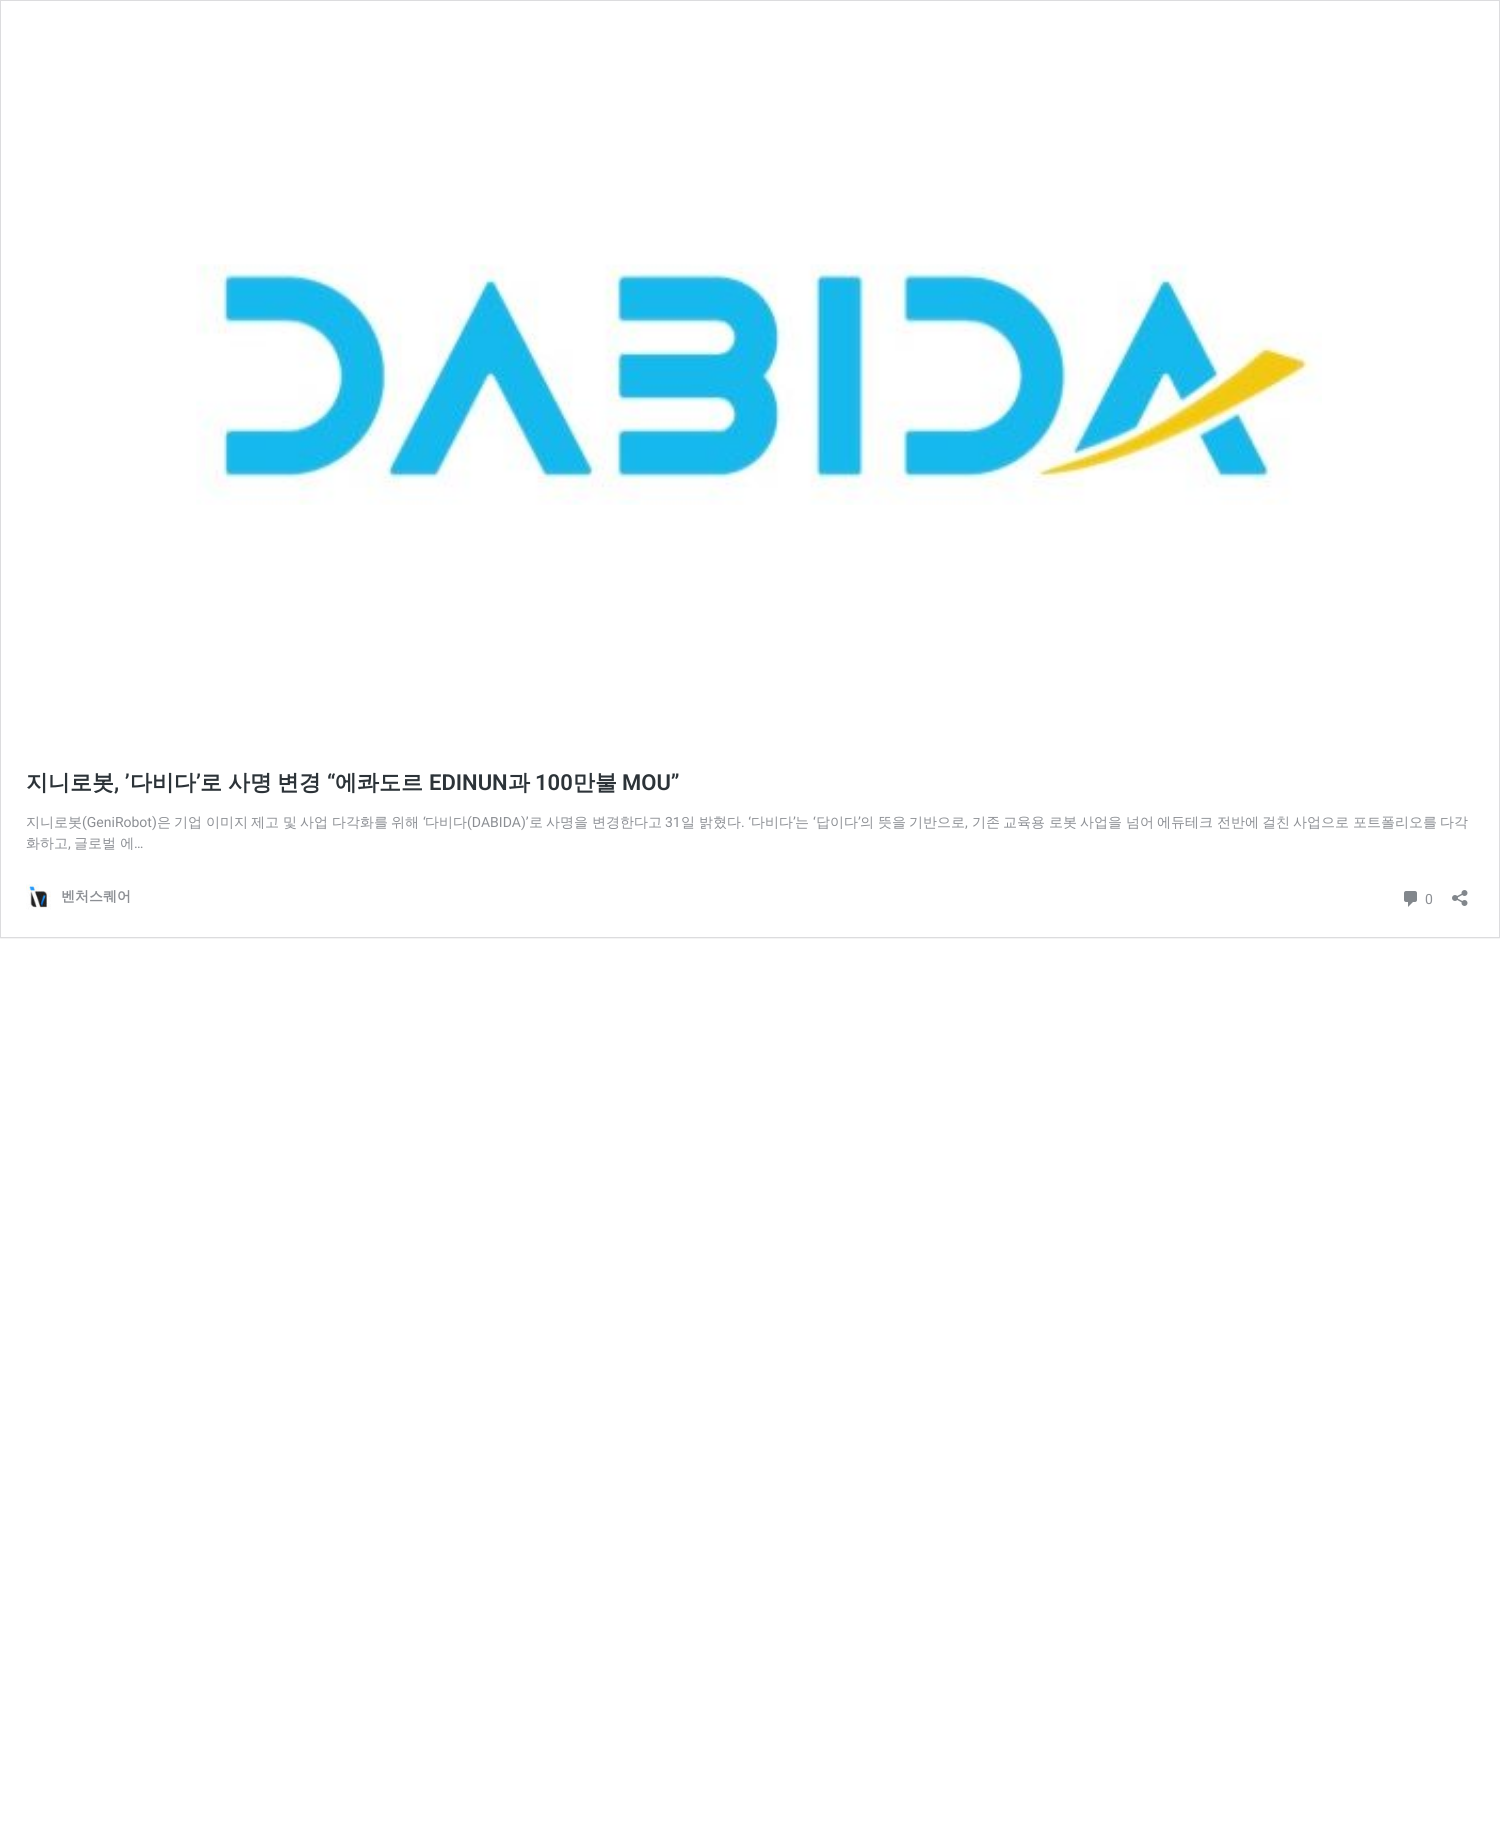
import math
import cairo

surface = cairo.ImageSurface(cairo.FORMAT_RGB24, 1500, 1848)
ctx = cairo.Context(surface)
options = cairo.FontOptions()
options.set_hint_metrics(cairo.HINT_METRICS_OFF)
options.set_hint_style(cairo.HINT_STYLE_NONE)
ctx.set_font_options(options)
ctx.set_miter_limit(4)


def round_rect(x, y, w, h, r):
    ctx.new_sub_path()
    for i, (u, v) in enumerate([(x + w - r, y + h - r), (x + r, y + h - r), (x + r, y + r), (x + w - r, y + r)]):
        ctx.arc(u, v, r, i * math.pi / 2, (i + 1) * math.pi / 2)
    ctx.close_path()


def shadow(x, y, w, h, r, blur, alpha):
    ctx.push_group_with_content(cairo.CONTENT_ALPHA)
    ctx.set_operator(cairo.OPERATOR_SOURCE)
    for i in range(15, -16, -2):
        e = blur * i / 6
        if min(w, h) + 2 * e > 0:
            ctx.set_source_rgba(0, 0, 0, alpha * math.erfc((i - 1) / 8.5) / 2)
            round_rect(x - e, y - e, w + 2 * e, h + 2 * e, max(0, min(r + e + blur * .6, min(w, h) / 2 + e)))
            ctx.fill()
    ctx.mask(ctx.pop_group())


def picture(path, x, y, w, h):
    ctx.save()
    ctx.set_source_surface(cairo.ImageSurface.create_from_png(path), x, y)
    ctx.rectangle(x, y, w, h)
    ctx.fill()
    ctx.restore()


ctx.set_source_rgb(1, 1, 1)
ctx.paint()
ctx.save()
ctx.rectangle(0, 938, 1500, 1)
ctx.clip()
ctx.set_source_rgb(0, 0, 0)
shadow(0, 1, 1500, 938, 0, 0.5, 0.05)
ctx.restore()
ctx.rectangle(0.5, 0.5, 1499, 937)
ctx.set_source_rgb(0.863, 0.863, 0.871)
ctx.set_line_width(1)
ctx.stroke()
picture("img1.png", 196, 264, 1126, 241)
ctx.select_font_face("WenQuanYi Zen Hei", cairo.FONT_SLANT_NORMAL, cairo.FONT_WEIGHT_BOLD)
ctx.set_font_size(22)
ctx.set_source_rgb(0.173, 0.2, 0.22)
ctx.move_to(26, 790)
ctx.show_text("지니로봇")
ctx.select_font_face("Roboto SemiBold")
ctx.move_to(114, 790)
ctx.show_text(", ’")
ctx.select_font_face("WenQuanYi Zen Hei", cairo.FONT_SLANT_NORMAL, cairo.FONT_WEIGHT_BOLD)
ctx.move_to(130, 790)
ctx.show_text("다비다")
ctx.select_font_face("Roboto SemiBold")
ctx.move_to(196, 790)
ctx.show_text("’")
ctx.select_font_face("WenQuanYi Zen Hei", cairo.FONT_SLANT_NORMAL, cairo.FONT_WEIGHT_BOLD)
ctx.move_to(200, 790)
ctx.show_text("로")
ctx.move_to(228, 790)
ctx.show_text("사명")
ctx.move_to(277, 790)
ctx.show_text("변경")
ctx.select_font_face("Roboto SemiBold")
ctx.move_to(327, 790)
ctx.show_text("“")
ctx.select_font_face("WenQuanYi Zen Hei", cairo.FONT_SLANT_NORMAL, cairo.FONT_WEIGHT_BOLD)
ctx.move_to(335, 790)
ctx.show_text("에콰도르")
ctx.select_font_face("Roboto SemiBold")
ctx.move_to(429, 790)
ctx.show_text("EDINUN")
ctx.select_font_face("WenQuanYi Zen Hei", cairo.FONT_SLANT_NORMAL, cairo.FONT_WEIGHT_BOLD)
ctx.move_to(508, 790)
ctx.show_text("과")
ctx.select_font_face("Roboto SemiBold")
ctx.move_to(535, 790)
ctx.show_text("100")
ctx.select_font_face("WenQuanYi Zen Hei", cairo.FONT_SLANT_NORMAL, cairo.FONT_WEIGHT_BOLD)
ctx.move_to(573, 790)
ctx.show_text("만불")
ctx.select_font_face("Roboto SemiBold")
ctx.move_to(622, 790)
ctx.show_text("MOU”")
ctx.select_font_face("WenQuanYi Zen Hei Medium")
ctx.set_font_size(14)
ctx.set_source_rgb(0.549, 0.561, 0.58)
ctx.move_to(26, 827)
ctx.show_text("지니로봇")
ctx.select_font_face("Roboto")
ctx.move_to(82, 827)
ctx.show_text("(GeniRobot)")
ctx.select_font_face("WenQuanYi Zen Hei Medium")
ctx.move_to(157, 827)
ctx.show_text("은")
ctx.move_to(174, 827)
ctx.show_text("기업")
ctx.move_to(206, 827)
ctx.show_text("이미지")
ctx.move_to(251, 827)
ctx.show_text("제고")
ctx.move_to(283, 827)
ctx.show_text("및")
ctx.move_to(300, 827)
ctx.show_text("사업")
ctx.move_to(332, 827)
ctx.show_text("다각화를")
ctx.move_to(391, 827)
ctx.show_text("위해")
ctx.select_font_face("Roboto")
ctx.move_to(423, 827)
ctx.show_text("‘")
ctx.select_font_face("WenQuanYi Zen Hei Medium")
ctx.move_to(425, 827)
ctx.show_text("다비다")
ctx.select_font_face("Roboto")
ctx.move_to(467, 827)
ctx.show_text("(DABIDA)’")
ctx.select_font_face("WenQuanYi Zen Hei Medium")
ctx.move_to(529, 827)
ctx.show_text("로")
ctx.move_to(546, 827)
ctx.show_text("사명을")
ctx.move_to(592, 827)
ctx.show_text("변경한다고")
ctx.select_font_face("Roboto")
ctx.move_to(665, 827)
ctx.show_text("31")
ctx.select_font_face("WenQuanYi Zen Hei Medium")
ctx.move_to(681, 827)
ctx.show_text("일")
ctx.move_to(699, 827)
ctx.show_text("밝혔다")
ctx.select_font_face("Roboto")
ctx.move_to(741, 827)
ctx.show_text(". ‘")
ctx.select_font_face("WenQuanYi Zen Hei Medium")
ctx.move_to(751, 827)
ctx.show_text("다비다")
ctx.select_font_face("Roboto")
ctx.move_to(793, 827)
ctx.show_text("’")
ctx.select_font_face("WenQuanYi Zen Hei Medium")
ctx.move_to(795, 827)
ctx.show_text("는")
ctx.select_font_face("Roboto")
ctx.move_to(813, 827)
ctx.show_text("‘")
ctx.select_font_face("WenQuanYi Zen Hei Medium")
ctx.move_to(816, 827)
ctx.show_text("답이다")
ctx.select_font_face("Roboto")
ctx.move_to(858, 827)
ctx.show_text("’")
ctx.select_font_face("WenQuanYi Zen Hei Medium")
ctx.move_to(860, 827)
ctx.show_text("의")
ctx.move_to(878, 827)
ctx.show_text("뜻을")
ctx.move_to(909, 827)
ctx.show_text("기반으로")
ctx.select_font_face("Roboto")
ctx.move_to(965, 827)
ctx.show_text(",")
ctx.select_font_face("WenQuanYi Zen Hei Medium")
ctx.move_to(972, 827)
ctx.show_text("기존")
ctx.move_to(1003, 827)
ctx.show_text("교육용")
ctx.move_to(1049, 827)
ctx.show_text("로봇")
ctx.move_to(1080, 827)
ctx.show_text("사업을")
ctx.move_to(1126, 827)
ctx.show_text("넘어")
ctx.move_to(1157, 827)
ctx.show_text("에듀테크")
ctx.move_to(1217, 827)
ctx.show_text("전반에")
ctx.move_to(1262, 827)
ctx.show_text("걸친")
ctx.move_to(1293, 827)
ctx.show_text("사업으로")
ctx.move_to(1353, 827)
ctx.show_text("포트폴리오를")
ctx.move_to(1440, 827)
ctx.show_text("다각")
ctx.move_to(26, 848)
ctx.show_text("화하고")
ctx.select_font_face("Roboto")
ctx.move_to(68, 848)
ctx.show_text(",")
ctx.select_font_face("WenQuanYi Zen Hei Medium")
ctx.move_to(74, 848)
ctx.show_text("글로벌 에")
ctx.select_font_face("Roboto")
ctx.move_to(134, 848)
ctx.show_text("…")
picture("img2.png", 26, 884, 25, 26)
ctx.select_font_face("WenQuanYi Zen Hei", cairo.FONT_SLANT_NORMAL, cairo.FONT_WEIGHT_BOLD)
ctx.move_to(61, 901)
ctx.show_text("벤처스퀘어")
picture("img3.png", 1404, 891, 13, 16)
ctx.select_font_face("Roboto")
ctx.move_to(1425, 904)
ctx.show_text("0")
picture("img4.png", 1452, 890, 16, 16)
surface.write_to_png("page.png")
